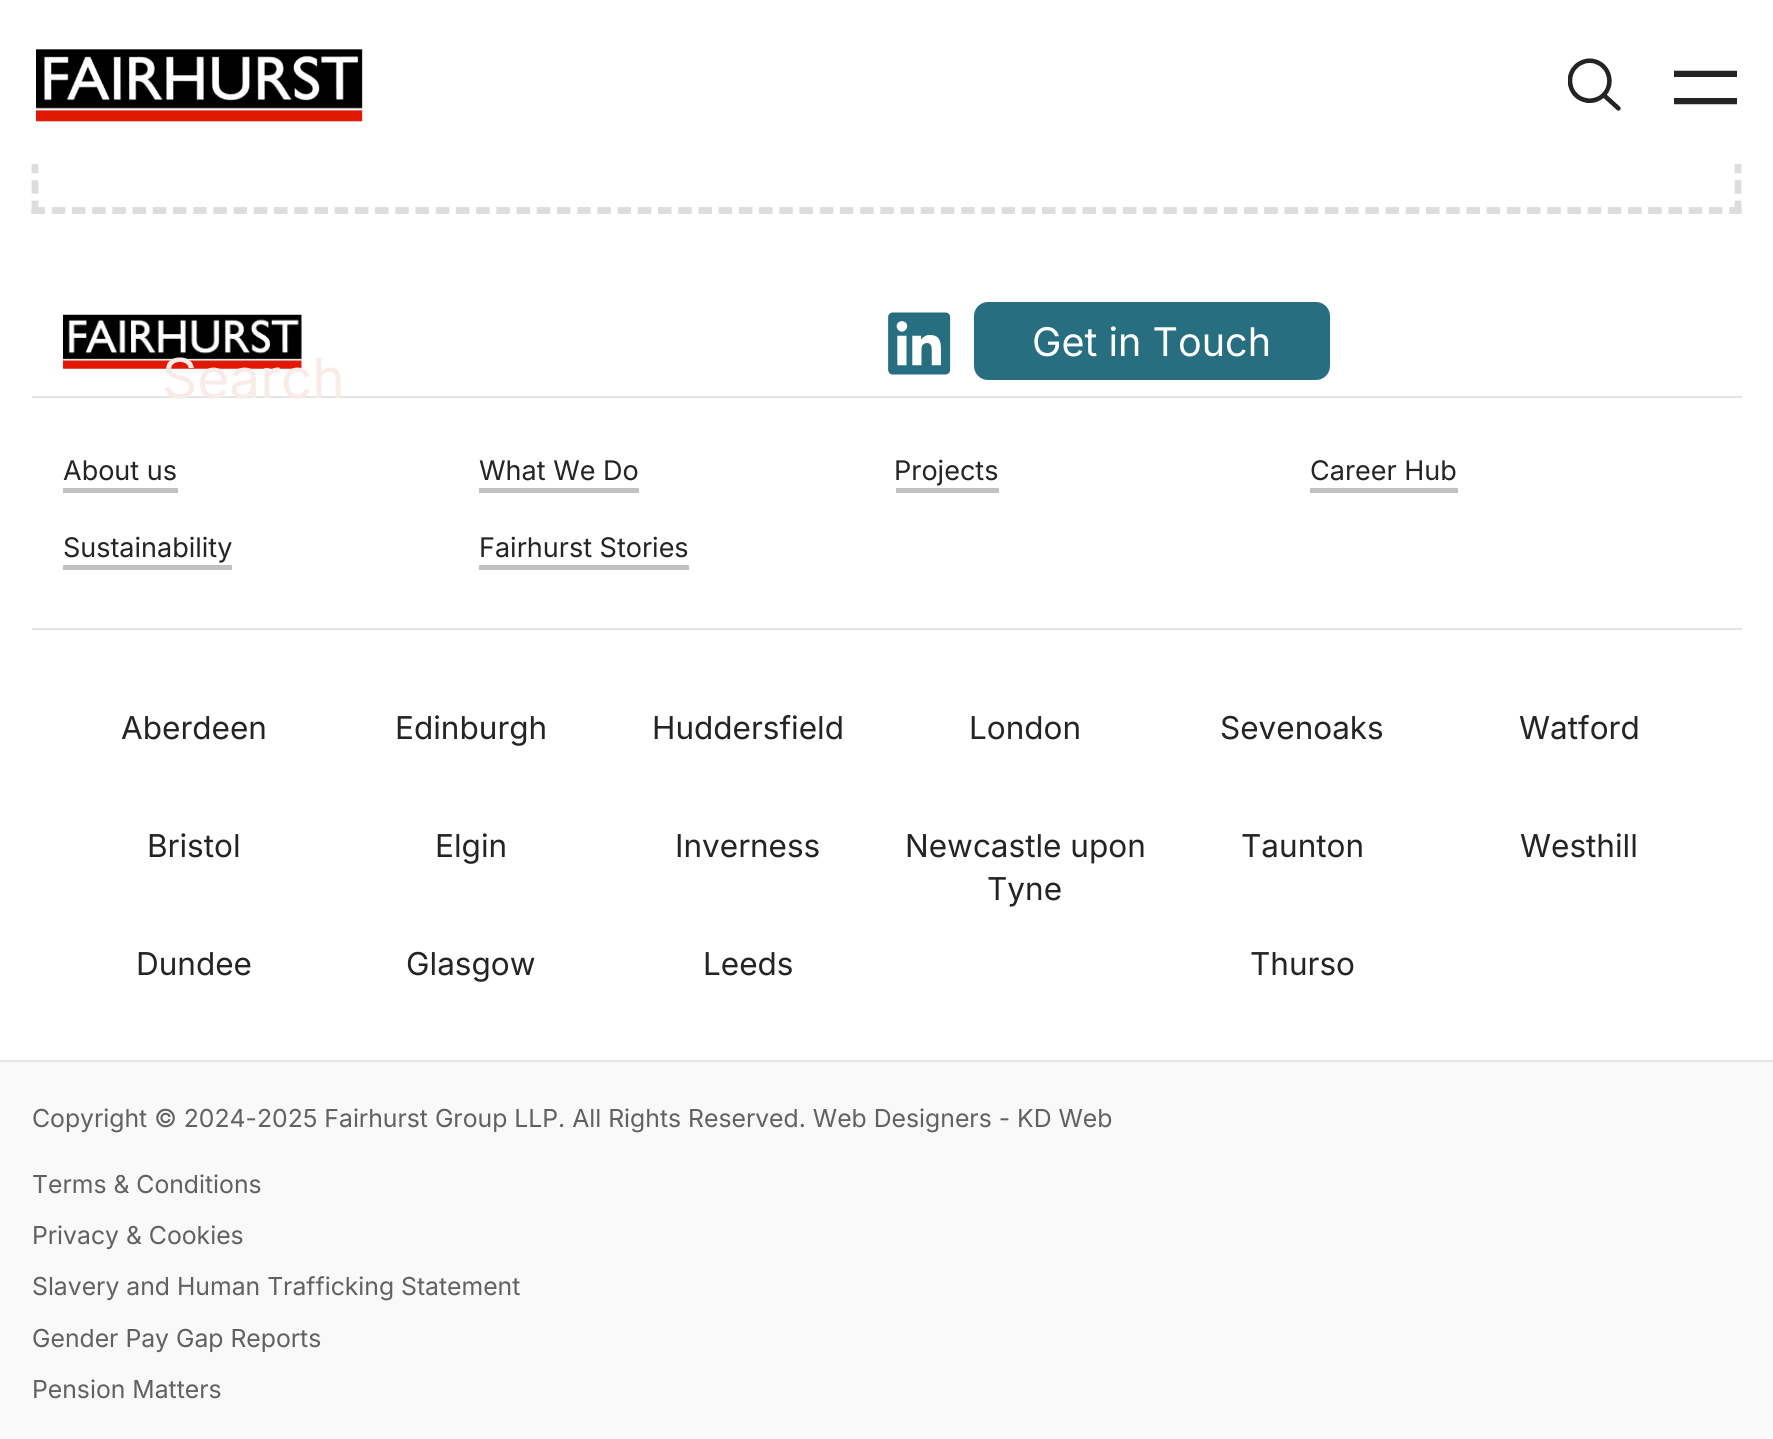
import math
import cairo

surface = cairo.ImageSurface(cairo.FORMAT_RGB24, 1773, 1439)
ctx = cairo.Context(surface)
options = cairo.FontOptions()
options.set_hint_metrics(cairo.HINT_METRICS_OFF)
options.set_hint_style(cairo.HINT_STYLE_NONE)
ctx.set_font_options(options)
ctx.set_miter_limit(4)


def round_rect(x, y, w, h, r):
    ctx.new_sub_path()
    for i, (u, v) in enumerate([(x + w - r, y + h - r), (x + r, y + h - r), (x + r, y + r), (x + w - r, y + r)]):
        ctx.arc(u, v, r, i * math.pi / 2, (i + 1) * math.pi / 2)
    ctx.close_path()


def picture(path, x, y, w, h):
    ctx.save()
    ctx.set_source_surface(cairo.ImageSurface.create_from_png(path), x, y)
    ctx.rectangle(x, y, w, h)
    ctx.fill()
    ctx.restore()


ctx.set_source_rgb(1, 1, 1)
ctx.paint()
ctx.new_path()
ctx.move_to(1738, -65)
ctx.line_to(1738, 214)
ctx.set_source_rgb(0.867, 0.867, 0.867)
ctx.set_line_width(6.8)
ctx.set_dash([13.5, 6.93])
ctx.stroke()
ctx.new_path()
ctx.move_to(31.5, 210.5)
ctx.line_to(1741.5, 210.5)
ctx.set_dash([13.5, 6.71])
ctx.stroke()
ctx.new_path()
ctx.move_to(35, -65)
ctx.line_to(35, 214)
ctx.set_dash([13.5, 6.93])
ctx.stroke()
picture("img1.png", 63, 314, 239, 55)
picture("img2.png", 888, 312, 63, 63)
ctx.set_source_rgb(0.153, 0.431, 0.506)
round_rect(974, 302, 356, 78, 14)
ctx.fill()
ctx.select_font_face("Inter")
ctx.set_font_size(39.5)
ctx.set_source_rgb(1, 1, 1)
ctx.move_to(1032, 356)
ctx.show_text("Get in Touch")
ctx.set_source_rgb(0.898, 0.894, 0.894)
ctx.rectangle(32, 396, 1710, 2)
ctx.fill()
ctx.set_source_rgb(0.757, 0.757, 0.757)
ctx.rectangle(63, 488, 115, 5)
ctx.fill()
ctx.set_font_size(27)
ctx.set_source_rgb(0.141, 0.141, 0.141)
ctx.move_to(63, 480)
ctx.show_text("About us")
ctx.set_source_rgb(0.757, 0.757, 0.757)
ctx.rectangle(479, 488, 160, 5)
ctx.fill()
ctx.set_source_rgb(0.141, 0.141, 0.141)
ctx.move_to(479, 480)
ctx.show_text("What We Do")
ctx.set_source_rgb(0.757, 0.757, 0.757)
ctx.rectangle(896, 488, 103, 5)
ctx.fill()
ctx.set_source_rgb(0.141, 0.141, 0.141)
ctx.move_to(894, 480)
ctx.show_text("Projects")
ctx.set_source_rgb(0.757, 0.757, 0.757)
ctx.rectangle(1310, 488, 148, 5)
ctx.fill()
ctx.set_source_rgb(0.141, 0.141, 0.141)
ctx.move_to(1310, 480)
ctx.show_text("Career Hub")
ctx.set_source_rgb(0.757, 0.757, 0.757)
ctx.rectangle(63, 565, 169, 5)
ctx.fill()
ctx.set_source_rgb(0.141, 0.141, 0.141)
ctx.move_to(63, 557)
ctx.show_text("Sustainability")
ctx.set_source_rgb(0.757, 0.757, 0.757)
ctx.rectangle(479, 565, 210, 5)
ctx.fill()
ctx.set_source_rgb(0.141, 0.141, 0.141)
ctx.move_to(479, 557)
ctx.show_text("Fairhurst Stories")
ctx.set_source_rgb(0.898, 0.894, 0.894)
ctx.rectangle(32, 628, 1710, 2)
ctx.fill()
ctx.set_font_size(31.5)
ctx.set_source_rgb(0.141, 0.141, 0.141)
ctx.move_to(121, 739)
ctx.show_text("Aberdeen")
ctx.move_to(395, 739)
ctx.show_text("Edinburgh")
ctx.move_to(652, 739)
ctx.show_text("Huddersfield")
ctx.move_to(969, 739)
ctx.show_text("London")
ctx.move_to(1220, 739)
ctx.show_text("Sevenoaks")
ctx.move_to(1519, 739)
ctx.show_text("Watford")
ctx.move_to(147, 857)
ctx.show_text("Bristol")
ctx.move_to(435, 857)
ctx.show_text("Elgin")
ctx.move_to(675, 857)
ctx.show_text("Inverness")
ctx.move_to(905, 857)
ctx.show_text("Newcastle upon")
ctx.move_to(987, 900)
ctx.show_text("Tyne")
ctx.move_to(1241, 857)
ctx.show_text("Taunton")
ctx.move_to(1520, 857)
ctx.show_text("Westhill")
ctx.move_to(136, 975)
ctx.show_text("Dundee")
ctx.move_to(406, 975)
ctx.show_text("Glasgow")
ctx.move_to(703, 975)
ctx.show_text("Leeds")
ctx.move_to(1250, 975)
ctx.show_text("Thurso")
ctx.set_source_rgb(0.973, 0.973, 0.973)
ctx.rectangle(0, 1062, 1773, 377)
ctx.fill()
ctx.set_source_rgb(0.898, 0.894, 0.894)
ctx.rectangle(0, 1060, 1773, 2)
ctx.fill()
ctx.set_font_size(24.75)
ctx.set_source_rgb(0.38, 0.38, 0.38)
ctx.move_to(32, 1127)
ctx.show_text("Copyright © 2024-2025 Fairhurst Group LLP. All Rights Reserved. Web Designers - KD Web")
ctx.move_to(32, 1193)
ctx.show_text("Terms & Conditions")
ctx.move_to(32, 1244)
ctx.show_text("Privacy & Cookies")
ctx.move_to(32, 1295)
ctx.show_text("Slavery and Human Trafficking Statement")
ctx.move_to(32, 1347)
ctx.show_text("Gender Pay Gap Reports")
ctx.move_to(32, 1398)
ctx.show_text("Pension Matters")
ctx.set_source_rgb(1, 1, 1)
ctx.rectangle(31, 0, 1711, 164)
ctx.fill()
picture("img3.png", 36, 49, 327, 73)
picture("img4.png", 1567, 58, 54, 53)
picture("img5.png", 1674, 70, 63, 35)
ctx.set_font_size(55)
ctx.set_source_rgb(0.973, 0.918, 0.91)
ctx.move_to(162, 398)
ctx.show_text("Search")
surface.write_to_png("page.png")
